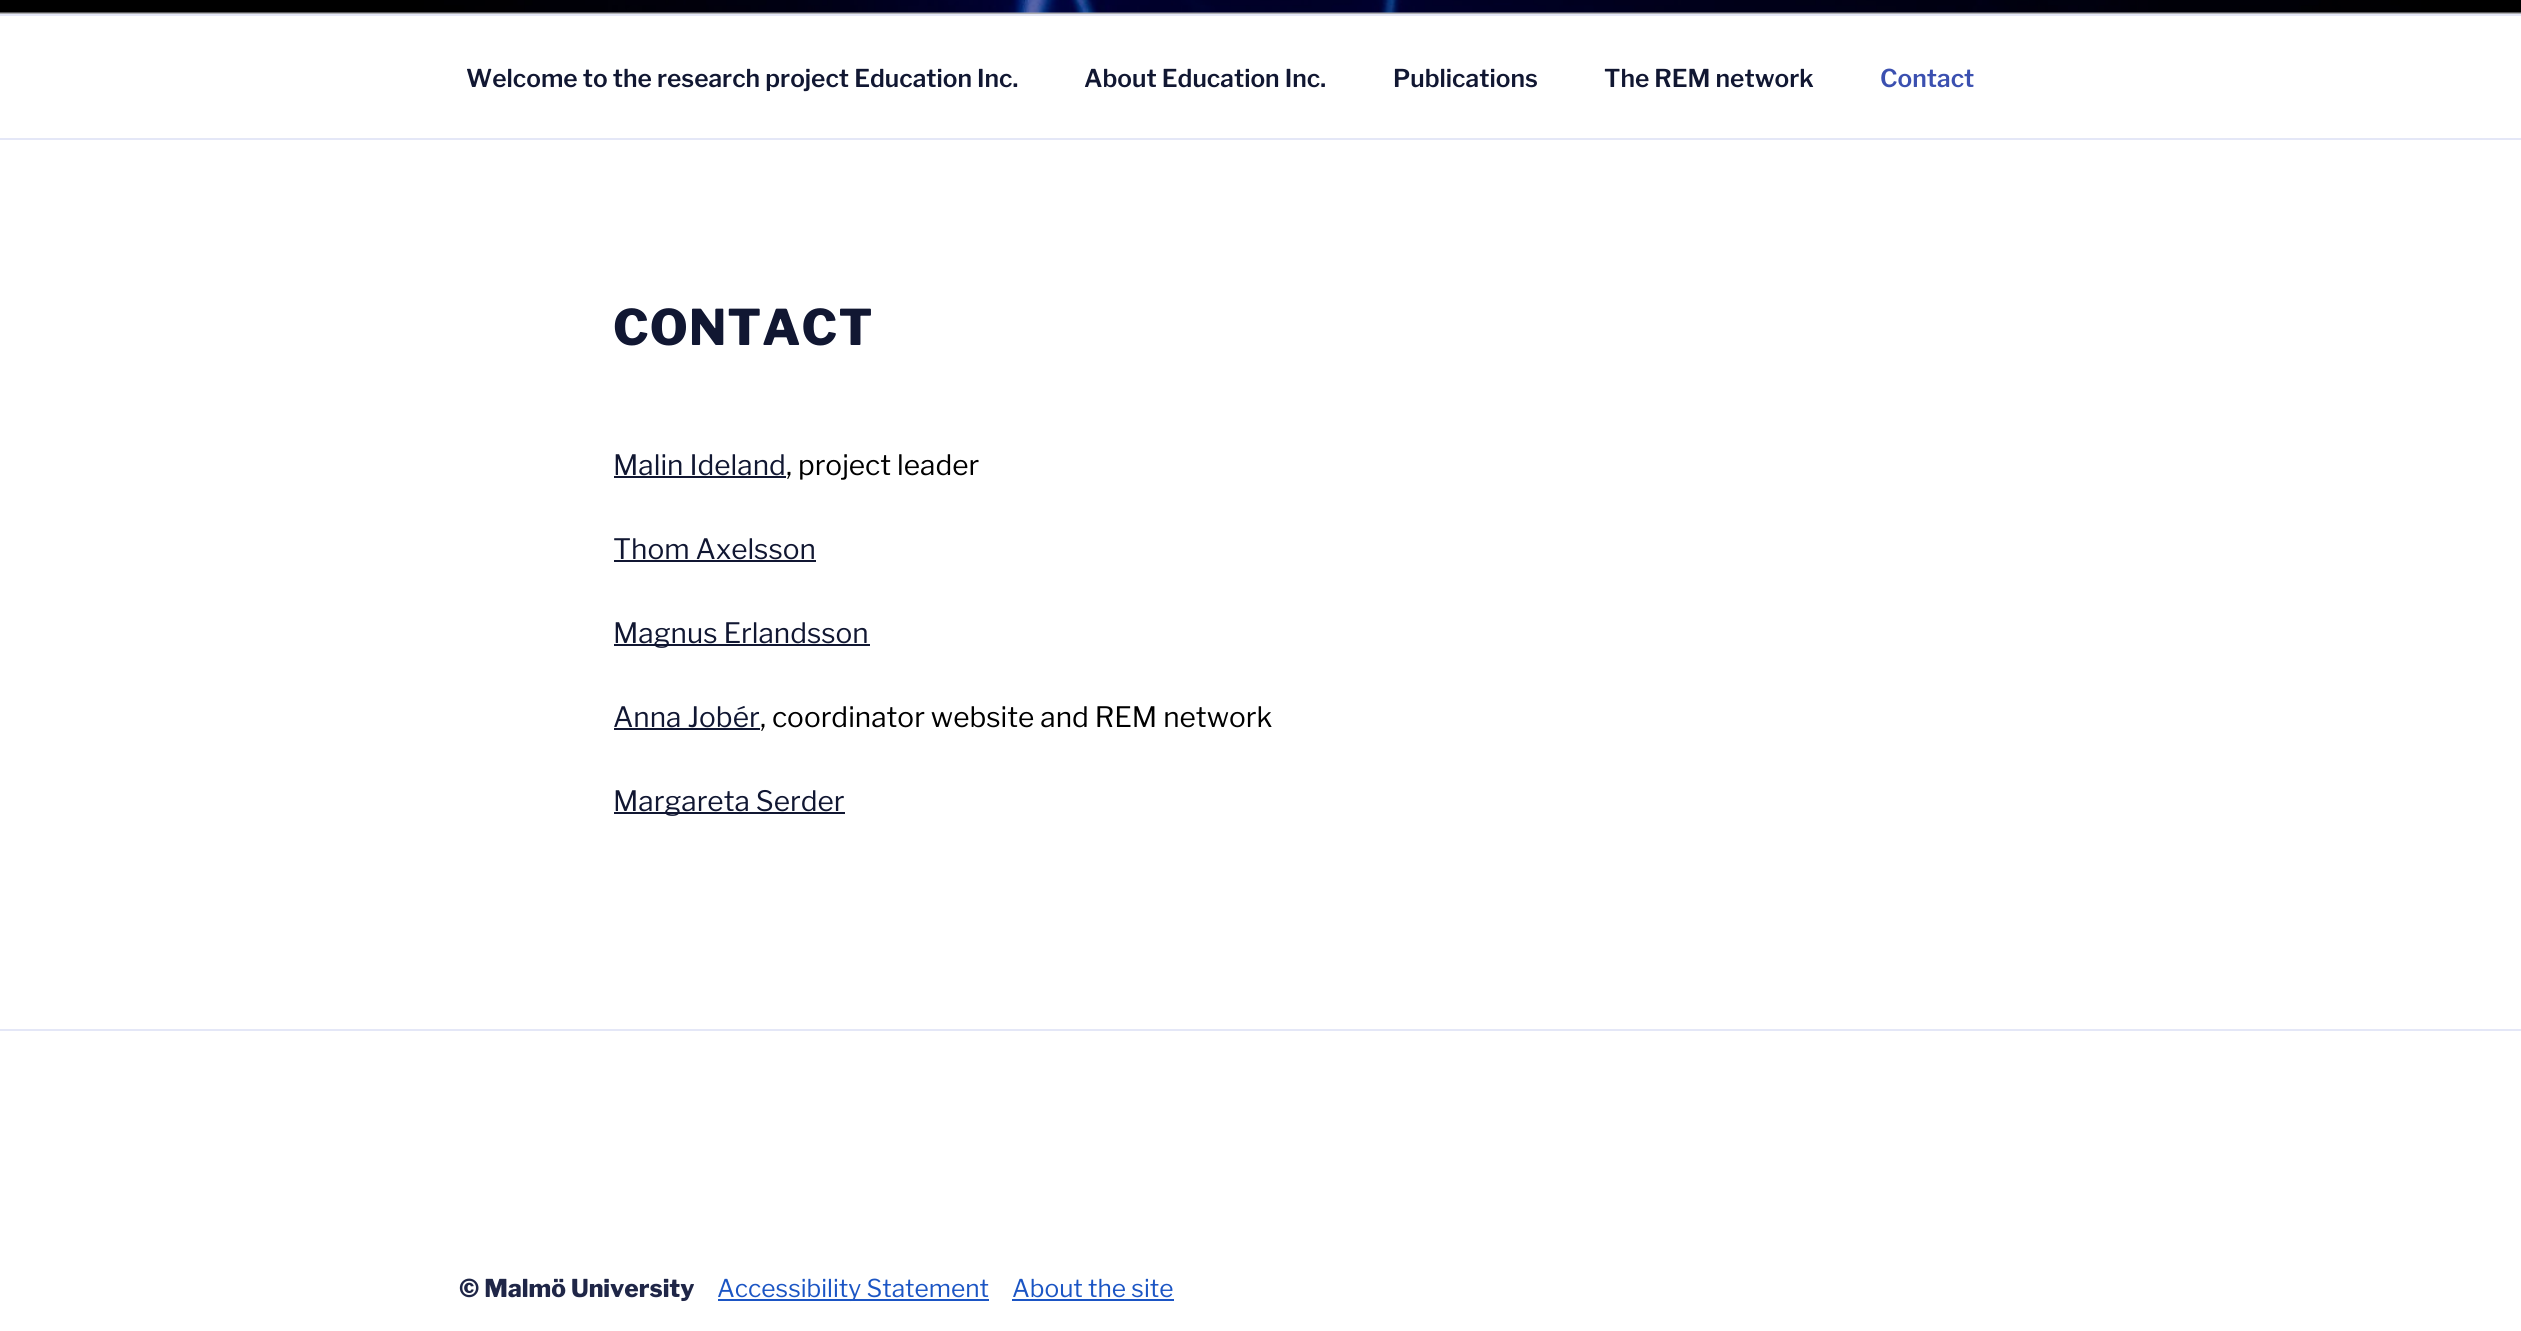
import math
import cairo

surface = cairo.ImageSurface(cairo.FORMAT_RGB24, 2521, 1331)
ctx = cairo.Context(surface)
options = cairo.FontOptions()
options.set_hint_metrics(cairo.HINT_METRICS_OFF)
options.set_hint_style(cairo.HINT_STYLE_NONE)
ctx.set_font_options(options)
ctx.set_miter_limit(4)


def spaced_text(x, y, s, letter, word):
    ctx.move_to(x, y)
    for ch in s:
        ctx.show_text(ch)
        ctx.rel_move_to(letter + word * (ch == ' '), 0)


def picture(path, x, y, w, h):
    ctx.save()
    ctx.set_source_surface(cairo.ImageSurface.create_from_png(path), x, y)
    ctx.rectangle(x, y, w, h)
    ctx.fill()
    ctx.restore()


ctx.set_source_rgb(1, 1, 1)
ctx.paint()
ctx.set_source_rgb(0.969, 0.973, 0.988)
ctx.rectangle(0, 12, 2521, 2)
ctx.fill()
picture("img1.png", 0, 0, 2521, 13)
gradient = cairo.LinearGradient(1261, -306, 1261, 14)
gradient.add_color_stop_rgba(0, 0, 0, 0, 0)
gradient.add_color_stop_rgba(0.75, 0, 0, 0, 0.3)
gradient.add_color_stop_rgba(1, 0, 0, 0, 0.3)
ctx.set_source(gradient)
ctx.rectangle(0, 0, 2521, 14)
ctx.fill()
ctx.set_source_rgb(0.894, 0.906, 0.965)
ctx.rectangle(0, 14, 2521, 2)
ctx.fill()
ctx.rectangle(0, 138, 2521, 2)
ctx.fill()
ctx.select_font_face("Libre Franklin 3 Thin")
ctx.set_font_size(24.5)
ctx.set_source_rgb(0.067, 0.09, 0.196)
ctx.move_to(466, 87)
ctx.show_text("Welcome to the research project Education Inc.")
ctx.move_to(1084, 87)
ctx.show_text("About Education Inc.")
ctx.move_to(1393, 87)
ctx.show_text("Publications")
ctx.move_to(1604, 87)
ctx.show_text("The REM network")
ctx.set_source_rgb(0.231, 0.314, 0.69)
ctx.move_to(1880, 87)
ctx.show_text("Contact")
ctx.select_font_face("Libre Franklin Thin")
ctx.set_font_size(49)
ctx.set_source_rgb(0.067, 0.09, 0.196)
spaced_text(613, 345, "CONTACT", 1, 0)
ctx.select_font_face("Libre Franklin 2 Thin")
ctx.set_font_size(28)
ctx.move_to(613, 475)
ctx.show_text("Malin Ideland")
ctx.rectangle(614, 476, 172, 2)
ctx.fill()
ctx.set_source_rgb(0, 0, 0)
ctx.move_to(786, 475)
ctx.show_text(", project leader")
ctx.set_source_rgb(0.067, 0.09, 0.196)
ctx.move_to(613, 559)
ctx.show_text("Thom Axelsson")
ctx.rectangle(614, 560, 202, 2)
ctx.fill()
ctx.rectangle(614, 644, 256, 2)
ctx.fill()
ctx.move_to(613, 643)
ctx.show_text("Magnus Erlandsson")
ctx.move_to(613, 727)
ctx.show_text("Anna Jobér")
ctx.rectangle(614, 728, 146, 2)
ctx.fill()
ctx.set_source_rgb(0, 0, 0)
ctx.move_to(760, 727)
ctx.show_text(", coordinator website and REM network")
ctx.set_source_rgb(0.067, 0.09, 0.196)
ctx.rectangle(614, 812, 231, 2)
ctx.fill()
ctx.move_to(613, 811)
ctx.show_text("Margareta Serder")
ctx.set_source_rgb(0.894, 0.906, 0.965)
ctx.rectangle(0, 1029, 2521, 2)
ctx.fill()
ctx.select_font_face("Libre Franklin Thin")
ctx.set_font_size(24.5)
ctx.set_source_rgb(0.122, 0.149, 0.278)
ctx.move_to(459, 1297)
ctx.show_text("© Malmö University")
ctx.set_source_rgb(0.106, 0.333, 0.769)
ctx.rectangle(718, 1299, 271, 2)
ctx.fill()
ctx.select_font_face("Libre Franklin 2 Thin")
ctx.move_to(717, 1297)
ctx.show_text("Accessibility Statement")
ctx.move_to(1012, 1297)
ctx.show_text("About the site")
ctx.rectangle(1012, 1299, 162, 2)
ctx.fill()
surface.write_to_png("page.png")
